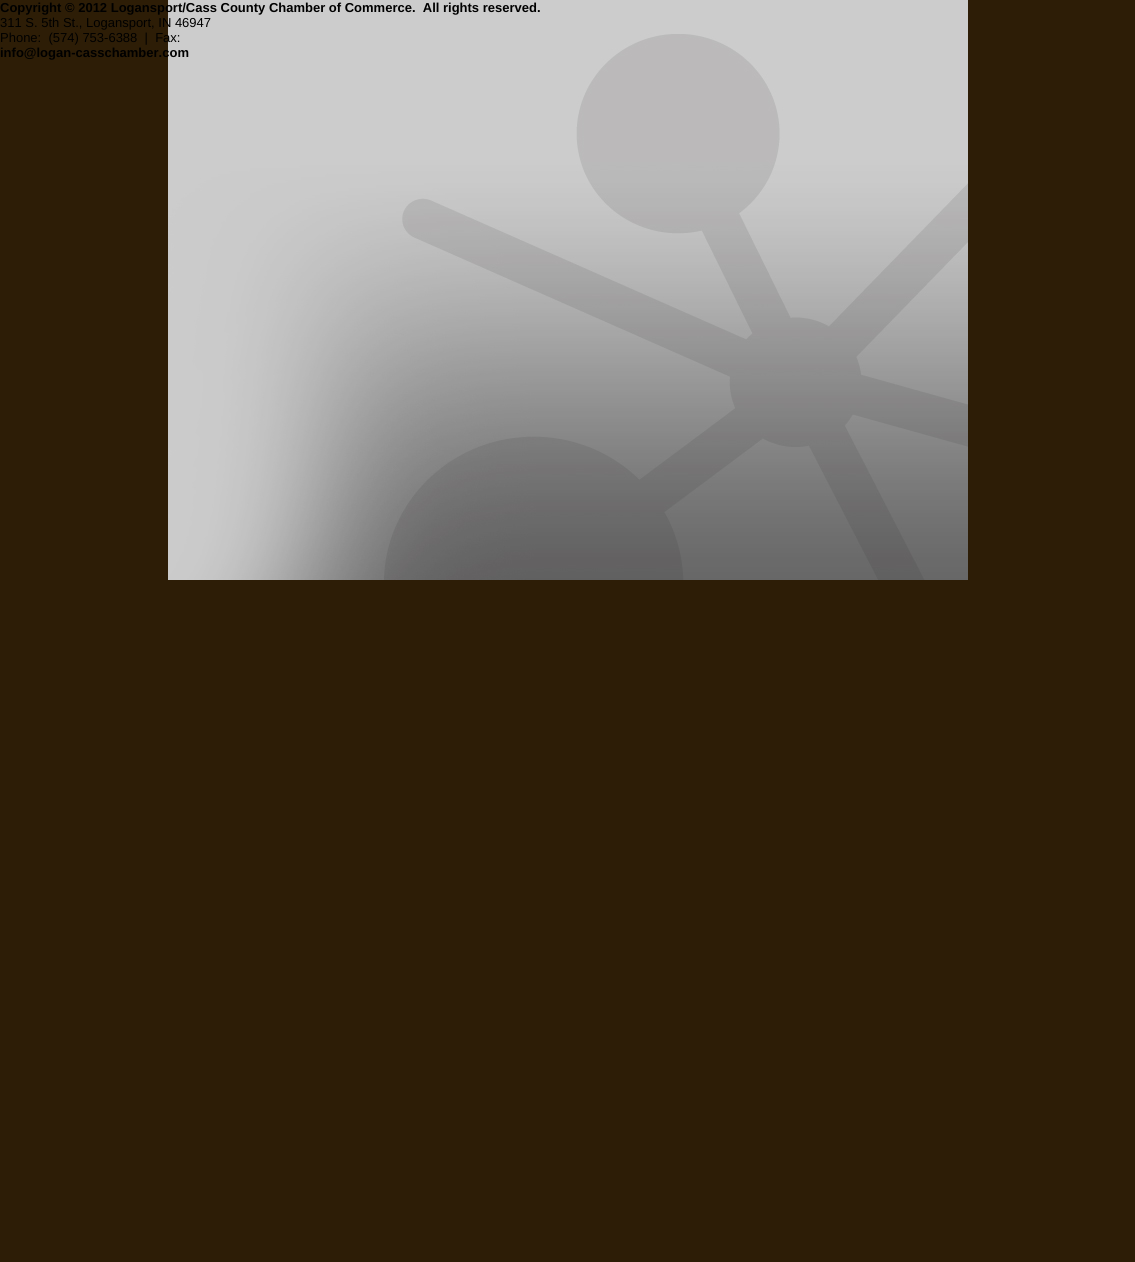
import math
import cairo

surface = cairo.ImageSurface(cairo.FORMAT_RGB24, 1135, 1262)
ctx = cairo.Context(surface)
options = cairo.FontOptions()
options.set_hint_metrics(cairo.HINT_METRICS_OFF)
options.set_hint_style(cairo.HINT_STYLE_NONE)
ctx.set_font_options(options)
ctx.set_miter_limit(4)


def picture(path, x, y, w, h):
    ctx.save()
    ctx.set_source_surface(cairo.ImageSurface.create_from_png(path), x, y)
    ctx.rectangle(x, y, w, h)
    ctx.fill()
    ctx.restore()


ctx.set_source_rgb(0.176, 0.114, 0.027)
ctx.paint()
picture("img1.png", 168, 0, 800, 580)
ctx.select_font_face("Liberation Sans", cairo.FONT_SLANT_NORMAL, cairo.FONT_WEIGHT_BOLD)
ctx.set_font_size(13)
ctx.set_source_rgb(0, 0, 0)
ctx.move_to(0, 12)
ctx.show_text("Copyright © 2012 Logansport/Cass County Chamber of Commerce.  All rights reserved.")
ctx.select_font_face("Liberation Sans")
ctx.move_to(0, 27)
ctx.show_text("311 S. 5th St., Logansport, IN 46947")
ctx.move_to(0, 42)
ctx.show_text("Phone:  (574) 753-6388  |  Fax:")
ctx.select_font_face("Liberation Sans", cairo.FONT_SLANT_NORMAL, cairo.FONT_WEIGHT_BOLD)
ctx.move_to(0, 57)
ctx.show_text("info@logan-casschamber.com")
surface.write_to_png("page.png")
